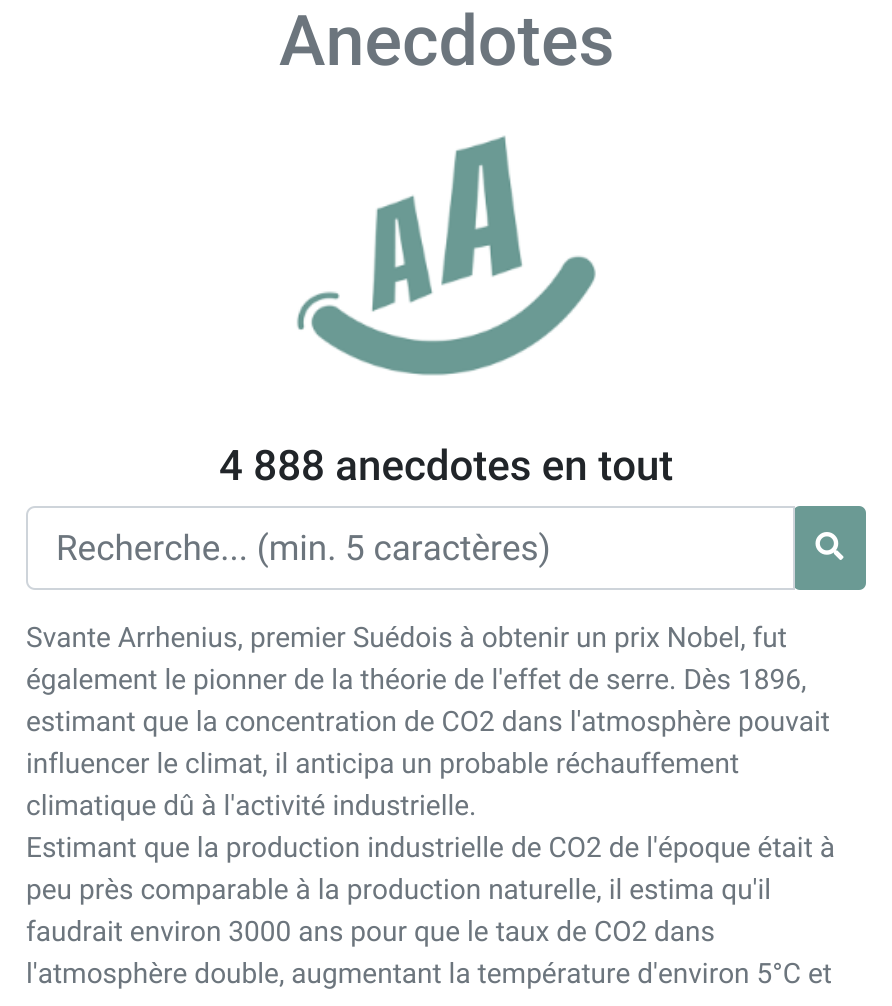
import math
import cairo

surface = cairo.ImageSurface(cairo.FORMAT_RGB24, 892, 1006)
ctx = cairo.Context(surface)
options = cairo.FontOptions()
options.set_hint_metrics(cairo.HINT_METRICS_OFF)
options.set_hint_style(cairo.HINT_STYLE_NONE)
ctx.set_font_options(options)
ctx.set_miter_limit(4)


def round_rect(x, y, w, h, r):
    ctx.new_sub_path()
    for i, (u, v) in enumerate([(x + w - r, y + h - r), (x + r, y + h - r), (x + r, y + r), (x + w - r, y + r)]):
        ctx.arc(u, v, r, i * math.pi / 2, (i + 1) * math.pi / 2)
    ctx.close_path()


def picture(path, x, y, w, h):
    ctx.save()
    ctx.set_source_surface(cairo.ImageSurface.create_from_png(path), x, y)
    ctx.rectangle(x, y, w, h)
    ctx.fill()
    ctx.restore()


ctx.set_source_rgb(1, 1, 1)
ctx.paint()
ctx.select_font_face("Roboto Medium")
ctx.set_font_size(70)
ctx.set_source_rgb(0.424, 0.459, 0.49)
ctx.move_to(279, 65)
ctx.show_text("Anecdotes")
picture("img1.png", 296, 135, 300, 241)
ctx.set_font_size(42)
ctx.set_source_rgb(0.129, 0.145, 0.161)
ctx.move_to(219, 480)
ctx.show_text("4 888 anecdotes en tout")
ctx.set_source_rgb(0.42, 0.604, 0.58)
round_rect(794, 507, 71, 82, 6)
ctx.fill_preserve()
ctx.stroke()
ctx.new_path()
ctx.move_to(35, 507)
ctx.line_to(794, 507)
ctx.line_to(794, 589)
ctx.line_to(35, 589)
ctx.curve_to(30.5, 589, 27, 585.5, 27, 581)
ctx.line_to(27, 515)
ctx.curve_to(27, 510.5, 30.5, 507, 35, 507)
ctx.close_path()
ctx.set_source_rgb(0.808, 0.831, 0.855)
ctx.stroke()
ctx.select_font_face("Roboto")
ctx.set_font_size(35)
ctx.set_source_rgb(0.424, 0.459, 0.49)
ctx.move_to(56, 560)
ctx.show_text("Recherche... (min. 5 caractères)")
picture("img2.png", 815, 532, 29, 28)
ctx.set_font_size(28)
ctx.move_to(26, 647)
ctx.show_text("Svante Arrhenius, premier Suédois à obtenir un prix Nobel, fut")
ctx.move_to(26, 689)
ctx.show_text("également le pionner de la théorie de l'effet de serre. Dès 1896,")
ctx.move_to(26, 731)
ctx.show_text("estimant que la concentration de CO2 dans l'atmosphère pouvait")
ctx.move_to(26, 773)
ctx.show_text("influencer le climat, il anticipa un probable réchauffement")
ctx.move_to(26, 815)
ctx.show_text("climatique dû à l'activité industrielle.")
ctx.move_to(26, 857)
ctx.show_text("Estimant que la production industrielle de CO2 de l'époque était à")
ctx.move_to(26, 899)
ctx.show_text("peu près comparable à la production naturelle, il estima qu'il")
ctx.move_to(26, 941)
ctx.show_text("faudrait environ 3000 ans pour que le taux de CO2 dans")
ctx.move_to(26, 983)
ctx.show_text("l'atmosphère double, augmentant la température d'environ 5°C et")
surface.write_to_png("page.png")
